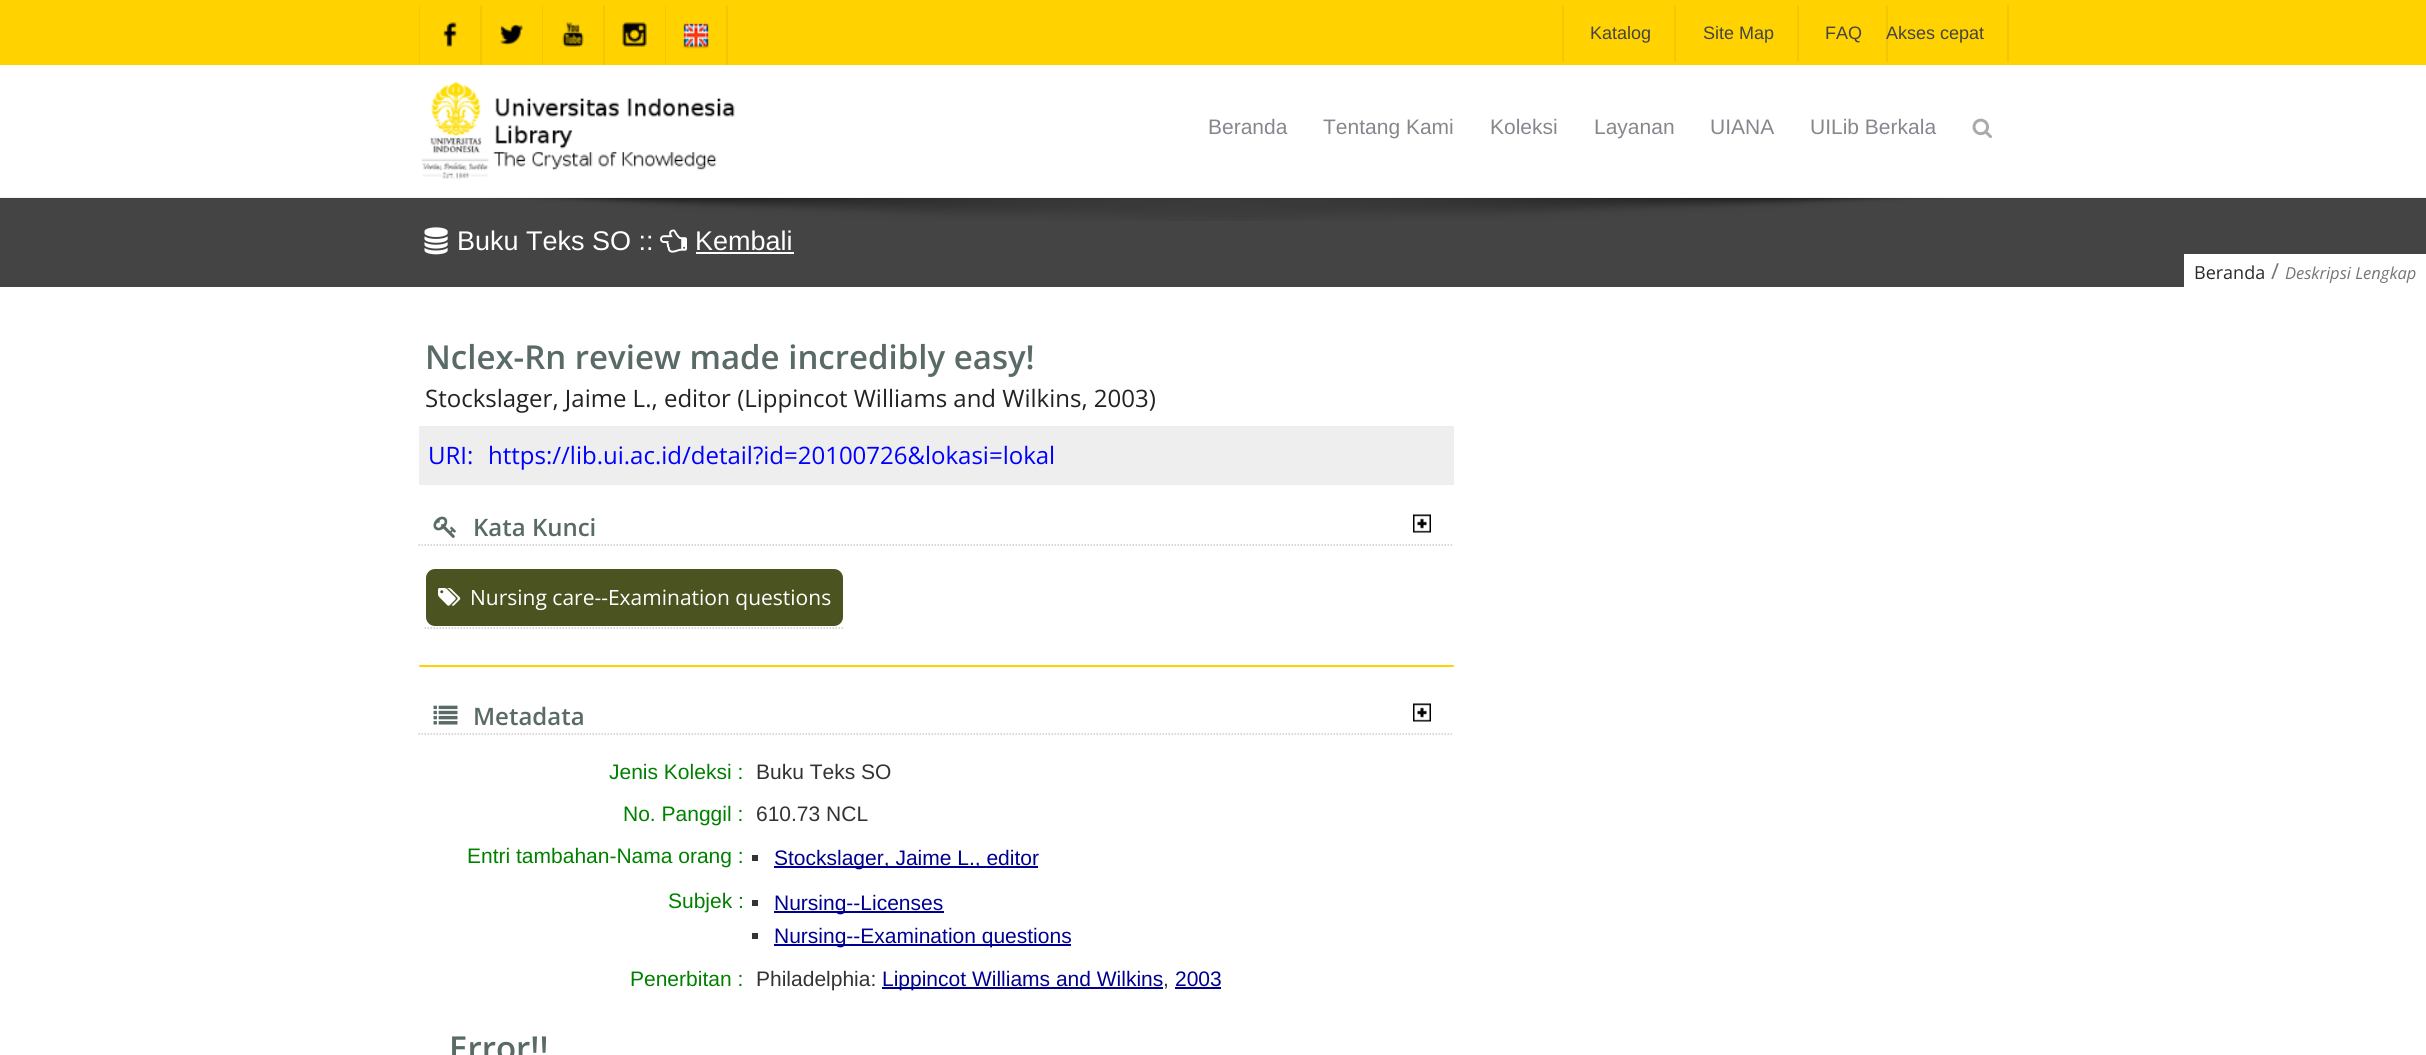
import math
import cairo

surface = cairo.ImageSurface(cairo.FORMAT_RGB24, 2426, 1055)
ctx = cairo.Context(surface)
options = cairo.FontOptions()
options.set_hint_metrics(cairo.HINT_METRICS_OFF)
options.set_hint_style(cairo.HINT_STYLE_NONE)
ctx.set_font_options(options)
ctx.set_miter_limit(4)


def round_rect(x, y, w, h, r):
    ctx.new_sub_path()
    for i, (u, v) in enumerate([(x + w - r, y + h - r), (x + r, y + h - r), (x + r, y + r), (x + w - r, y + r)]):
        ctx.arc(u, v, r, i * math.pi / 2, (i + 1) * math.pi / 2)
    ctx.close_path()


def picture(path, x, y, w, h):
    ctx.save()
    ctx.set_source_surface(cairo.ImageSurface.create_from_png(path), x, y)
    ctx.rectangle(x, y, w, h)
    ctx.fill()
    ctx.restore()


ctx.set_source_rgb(1, 1, 1)
ctx.paint()
ctx.set_source_rgb(1, 0.824, 0)
ctx.rectangle(0, 0, 2426, 65)
ctx.fill()
ctx.set_source_rgb(0.949, 0.784, 0)
ctx.rectangle(419, 5, 1, 60)
ctx.fill()
ctx.rectangle(480, 5, 2, 60)
ctx.fill()
picture("img1.png", 443, 22, 14, 25)
ctx.rectangle(542, 5, 1, 60)
ctx.fill()
picture("img2.png", 499, 24, 25, 22)
ctx.rectangle(603, 5, 2, 60)
ctx.fill()
picture("img3.png", 562, 22, 22, 25)
ctx.rectangle(665, 5, 1, 60)
ctx.fill()
picture("img4.png", 622, 22, 25, 25)
ctx.rectangle(726, 5, 2, 60)
ctx.fill()
picture("img5.png", 683, 23, 26, 26)
ctx.rectangle(1562, 5, 2, 57)
ctx.fill()
ctx.select_font_face("Liberation Sans")
ctx.set_font_size(18)
ctx.set_source_rgb(0.267, 0.267, 0.267)
ctx.move_to(1590, 39)
ctx.show_text("Katalog")
ctx.set_source_rgb(0.949, 0.784, 0)
ctx.rectangle(1674, 5, 2, 57)
ctx.fill()
ctx.set_source_rgb(0.267, 0.267, 0.267)
ctx.move_to(1703, 39)
ctx.show_text("Site Map")
ctx.set_source_rgb(0.949, 0.784, 0)
ctx.rectangle(1797, 5, 2, 57)
ctx.fill()
ctx.set_source_rgb(0.267, 0.267, 0.267)
ctx.move_to(1825, 39)
ctx.show_text("FAQ")
ctx.set_source_rgb(0.949, 0.784, 0)
ctx.rectangle(2007, 5, 2, 57)
ctx.fill()
ctx.rectangle(1886, 5, 2, 57)
ctx.fill()
ctx.set_source_rgb(0.267, 0.267, 0.267)
ctx.move_to(1886, 39)
ctx.show_text("Akses cepat")
ctx.rectangle(0, 198, 2426, 89)
ctx.fill()
picture("img8.png", 492, 198, 1453, 23)
ctx.set_source_rgba(0, 0, 0, 0.05)
ctx.rectangle(0, 197, 2426, 2)
ctx.fill()
picture("img6.png", 421, 81, 314, 98)
ctx.set_font_size(21)
ctx.set_source_rgb(0.518, 0.533, 0.553)
ctx.move_to(1208, 134)
ctx.show_text("Beranda")
ctx.move_to(1323, 134)
ctx.show_text("Tentang Kami")
ctx.move_to(1490, 134)
ctx.show_text("Koleksi")
ctx.move_to(1594, 134)
ctx.show_text("Layanan")
ctx.move_to(1710, 134)
ctx.show_text("UIANA")
ctx.move_to(1810, 134)
ctx.show_text("UILib Berkala")
picture("img7.png", 1972, 118, 20, 21)
picture("img9.png", 424, 227, 24, 28)
ctx.set_font_size(27)
ctx.set_source_rgb(1, 1, 1)
ctx.move_to(457, 250)
ctx.show_text("Buku Teks SO ::")
picture("img10.png", 660, 229, 27, 24)
ctx.move_to(695, 250)
ctx.show_text("Kembali")
ctx.rectangle(696, 252, 98, 2)
ctx.fill()
ctx.rectangle(2184, 254, 242, 33)
ctx.fill()
ctx.select_font_face("Open Sans")
ctx.set_font_size(18)
ctx.set_source_rgb(0.161, 0.161, 0.157)
ctx.move_to(2194, 279)
ctx.show_text("Beranda")
ctx.set_font_size(22)
ctx.set_source_rgb(0.459, 0.459, 0.459)
ctx.move_to(2271, 279)
ctx.show_text("/")
ctx.select_font_face("Open Sans", cairo.FONT_SLANT_ITALIC)
ctx.set_font_size(16.5)
ctx.move_to(2285, 279)
ctx.show_text("Deskripsi Lengkap")
ctx.select_font_face("Open Sans SemiBold")
ctx.set_font_size(33)
ctx.set_source_rgb(0.349, 0.416, 0.404)
ctx.move_to(425, 369)
ctx.show_text("Nclex-Rn review made incredibly easy!")
ctx.select_font_face("Open Sans")
ctx.set_font_size(24)
ctx.set_source_rgb(0.133, 0.133, 0.133)
ctx.move_to(425, 407)
ctx.show_text("Stockslager, Jaime L., editor (Lippincot Williams and Wilkins, 2003)")
ctx.set_source_rgb(0.933, 0.933, 0.933)
ctx.rectangle(419, 426, 1035, 59)
ctx.fill()
ctx.set_source_rgb(0, 0, 1)
ctx.move_to(428, 464)
ctx.show_text("URI:")
ctx.move_to(488, 464)
ctx.show_text("https://lib.ui.ac.id/detail?id=20100726&lokasi=lokal")
ctx.new_path()
ctx.move_to(418.5, 545)
ctx.line_to(1453.5, 545)
ctx.set_source_rgb(0.8, 0.8, 0.8)
ctx.set_line_width(1.5)
ctx.set_dash([1.5, 1.5])
ctx.stroke()
picture("img11.png", 433, 516, 23, 22)
ctx.select_font_face("Open Sans SemiBold")
ctx.set_source_rgb(0.349, 0.416, 0.404)
ctx.move_to(473, 536)
ctx.show_text("Kata Kunci")
picture("img12.png", 1413, 514, 18, 19)
ctx.new_path()
ctx.move_to(424.5, 628)
ctx.line_to(844.5, 628)
ctx.set_source_rgb(0.8, 0.8, 0.8)
ctx.stroke()
ctx.set_source_rgb(0.294, 0.325, 0.125)
round_rect(426, 569, 417, 57, 9)
ctx.fill()
picture("img13.png", 438, 588, 23, 18)
ctx.select_font_face("Open Sans")
ctx.set_font_size(21)
ctx.set_source_rgb(1, 1, 1)
ctx.move_to(470, 605)
ctx.show_text("Nursing care--Examination questions")
ctx.set_source_rgb(1, 0.824, 0)
round_rect(419, 665, 1035, 2, 1)
ctx.fill()
ctx.new_path()
ctx.move_to(418.5, 734)
ctx.line_to(1453.5, 734)
ctx.set_source_rgb(0.8, 0.8, 0.8)
ctx.stroke()
picture("img14.png", 433, 705, 25, 20)
ctx.select_font_face("Open Sans SemiBold")
ctx.set_font_size(24)
ctx.set_source_rgb(0.349, 0.416, 0.404)
ctx.move_to(473, 725)
ctx.show_text("Metadata")
picture("img12.png", 1413, 703, 18, 19)
ctx.select_font_face("Liberation Sans")
ctx.set_font_size(21)
ctx.set_source_rgb(0, 0.502, 0)
ctx.move_to(609, 779)
ctx.show_text("Jenis Koleksi :")
ctx.set_source_rgb(0.2, 0.2, 0.2)
ctx.move_to(756, 779)
ctx.show_text("Buku Teks SO")
ctx.set_source_rgb(0, 0.502, 0)
ctx.move_to(623, 821)
ctx.show_text("No. Panggil :")
ctx.set_source_rgb(0.2, 0.2, 0.2)
ctx.move_to(756, 821)
ctx.show_text("610.73 NCL")
ctx.set_source_rgb(0, 0.502, 0)
ctx.move_to(467, 863)
ctx.show_text("Entri tambahan-Nama orang :")
ctx.set_source_rgb(0.2, 0.2, 0.2)
ctx.rectangle(752, 855, 6, 6)
ctx.fill()
ctx.set_source_rgb(0, 0, 0.565)
ctx.rectangle(774, 866, 264, 2)
ctx.fill()
ctx.move_to(774, 865)
ctx.show_text("Stockslager, Jaime L., editor")
ctx.set_source_rgb(0, 0.502, 0)
ctx.move_to(668, 908)
ctx.show_text("Subjek :")
ctx.set_source_rgb(0.2, 0.2, 0.2)
ctx.rectangle(752, 900, 6, 6)
ctx.fill()
ctx.set_source_rgb(0, 0, 0.565)
ctx.rectangle(774, 911, 170, 2)
ctx.fill()
ctx.move_to(774, 910)
ctx.show_text("Nursing--Licenses")
ctx.set_source_rgb(0.2, 0.2, 0.2)
ctx.rectangle(752, 933, 6, 6)
ctx.fill()
ctx.set_source_rgb(0, 0, 0.565)
ctx.rectangle(774, 944, 297, 2)
ctx.fill()
ctx.move_to(774, 943)
ctx.show_text("Nursing--Examination questions")
ctx.set_source_rgb(0, 0.502, 0)
ctx.move_to(630, 986)
ctx.show_text("Penerbitan :")
ctx.set_source_rgb(0.2, 0.2, 0.2)
ctx.move_to(756, 986)
ctx.show_text("Philadelphia:")
ctx.set_source_rgb(0, 0, 0.565)
ctx.rectangle(882, 987, 281, 2)
ctx.fill()
ctx.move_to(882, 986)
ctx.show_text("Lippincot Williams and Wilkins")
ctx.set_source_rgb(0.2, 0.2, 0.2)
ctx.move_to(1163, 986)
ctx.show_text(",")
ctx.set_source_rgb(0, 0, 0.565)
ctx.move_to(1175, 986)
ctx.show_text("2003")
ctx.rectangle(1175, 987, 46, 2)
ctx.fill()
ctx.select_font_face("Open Sans SemiBold")
ctx.set_font_size(33)
ctx.set_source_rgb(0.349, 0.416, 0.404)
ctx.move_to(449, 1060)
ctx.show_text("Error!!")
surface.write_to_png("page.png")
